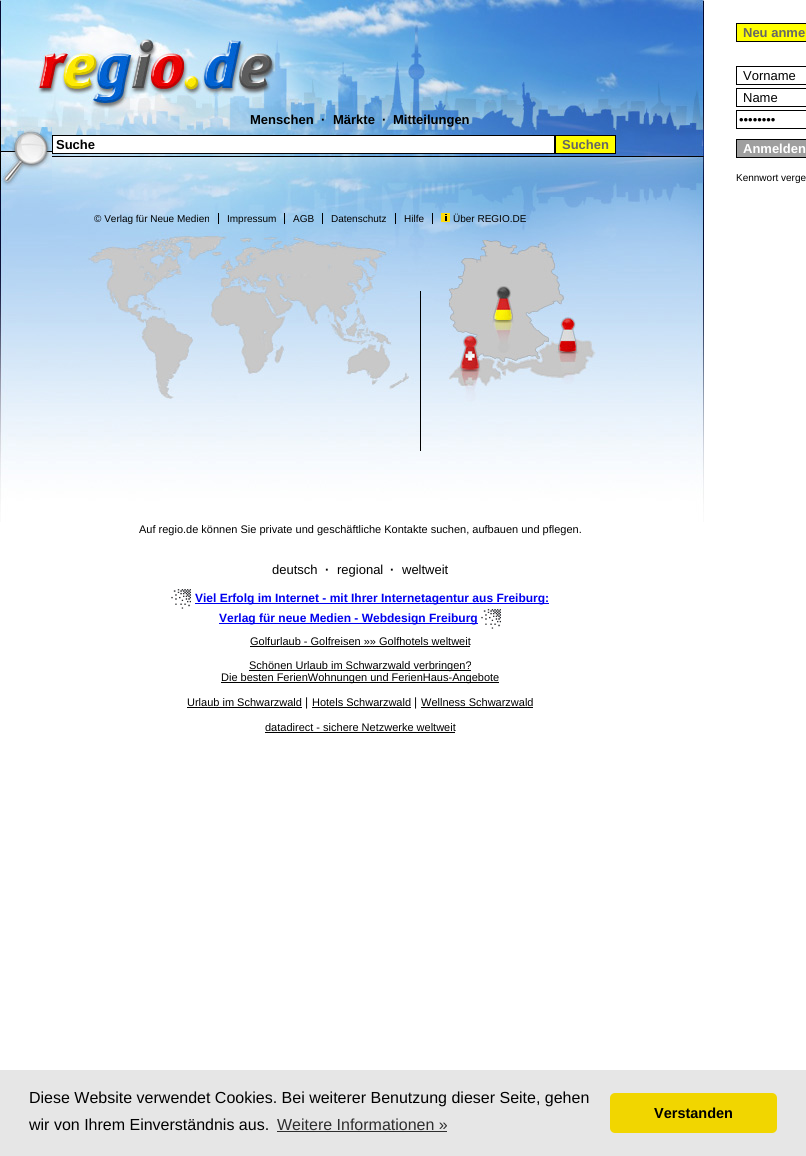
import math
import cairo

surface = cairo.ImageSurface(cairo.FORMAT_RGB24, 806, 1156)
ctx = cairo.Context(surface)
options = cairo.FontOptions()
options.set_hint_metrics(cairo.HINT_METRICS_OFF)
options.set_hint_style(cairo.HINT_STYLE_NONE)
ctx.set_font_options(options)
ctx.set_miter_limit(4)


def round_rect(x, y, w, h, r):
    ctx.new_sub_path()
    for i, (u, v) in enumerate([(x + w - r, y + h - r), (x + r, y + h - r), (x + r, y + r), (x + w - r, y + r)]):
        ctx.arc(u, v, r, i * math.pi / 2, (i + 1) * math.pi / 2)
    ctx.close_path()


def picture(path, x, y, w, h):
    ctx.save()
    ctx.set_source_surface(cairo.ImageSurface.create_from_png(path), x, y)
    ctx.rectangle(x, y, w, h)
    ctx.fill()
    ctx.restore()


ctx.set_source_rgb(1, 1, 1)
ctx.paint()
picture("img1.png", 0, 0, 704, 522)
ctx.select_font_face("Liberation Sans", cairo.FONT_SLANT_NORMAL, cairo.FONT_WEIGHT_BOLD)
ctx.set_font_size(13)
ctx.set_source_rgb(0, 0, 0)
ctx.move_to(250, 124)
ctx.show_text("Menschen")
ctx.move_to(321, 124)
ctx.show_text("·")
ctx.move_to(333, 124)
ctx.show_text("Märkte")
ctx.move_to(382, 124)
ctx.show_text("·")
ctx.move_to(393, 124)
ctx.show_text("Mitteilungen")
ctx.set_source_rgb(1, 1, 0)
ctx.rectangle(736.5, 23.5, 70, 18)
ctx.fill_preserve()
ctx.set_source_rgb(0, 0, 0)
ctx.set_line_width(1)
ctx.stroke()
ctx.set_source_rgb(0.4, 0.4, 0.4)
ctx.move_to(743, 37)
ctx.show_text("Neu anme")
ctx.rectangle(736.5, 66.5, 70, 18)
ctx.set_source_rgb(0, 0, 0)
ctx.stroke()
ctx.select_font_face("Liberation Sans")
ctx.move_to(743, 80)
ctx.show_text("Vorname")
ctx.rectangle(736.5, 88.5, 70, 18)
ctx.stroke()
ctx.move_to(743, 102)
ctx.show_text("Name")
ctx.rectangle(736.5, 110.5, 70, 18)
ctx.stroke()
ctx.move_to(739, 124)
ctx.show_text("••••••••")
ctx.set_source_rgb(0.624, 0.624, 0.624)
ctx.rectangle(736.5, 139.5, 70, 18)
ctx.fill_preserve()
ctx.set_source_rgb(0, 0, 0)
ctx.stroke()
ctx.select_font_face("Liberation Sans", cairo.FONT_SLANT_NORMAL, cairo.FONT_WEIGHT_BOLD)
ctx.set_source_rgb(1, 1, 1)
ctx.move_to(743, 153)
ctx.show_text("Anmelden")
ctx.select_font_face("Liberation Sans")
ctx.set_font_size(10)
ctx.set_source_rgb(0, 0, 0)
ctx.move_to(736, 181)
ctx.show_text("Kennwort verge")
picture("img2.png", 0, 127, 52, 63)
ctx.set_source_rgb(1, 1, 1)
ctx.rectangle(52.5, 135.5, 502, 18)
ctx.fill_preserve()
ctx.set_source_rgb(0, 0, 0)
ctx.stroke()
ctx.select_font_face("Liberation Sans", cairo.FONT_SLANT_NORMAL, cairo.FONT_WEIGHT_BOLD)
ctx.set_font_size(13)
ctx.move_to(56, 149)
ctx.show_text("Suche")
ctx.set_source_rgb(1, 1, 0)
ctx.rectangle(555.5, 135.5, 60, 18)
ctx.fill_preserve()
ctx.set_source_rgb(0, 0, 0)
ctx.stroke()
ctx.set_source_rgb(0.4, 0.4, 0.4)
ctx.move_to(562, 149)
ctx.show_text("Suchen")
ctx.set_source_rgb(0, 0, 0)
ctx.rectangle(218, 213, 1, 11)
ctx.fill()
ctx.select_font_face("Liberation Sans")
ctx.set_font_size(10)
ctx.move_to(94, 222)
ctx.show_text("© Verlag für Neue Medien")
ctx.rectangle(284, 213, 1, 11)
ctx.fill()
ctx.move_to(227, 222)
ctx.show_text("Impressum")
ctx.rectangle(322, 213, 1, 11)
ctx.fill()
ctx.move_to(293, 222)
ctx.show_text("AGB")
ctx.rectangle(395, 213, 1, 11)
ctx.fill()
ctx.move_to(331, 222)
ctx.show_text("Datenschutz")
ctx.rectangle(432, 213, 1, 11)
ctx.fill()
ctx.move_to(404, 222)
ctx.show_text("Hilfe")
picture("img3.png", 441, 213, 9, 9)
ctx.move_to(453, 222)
ctx.show_text("Über REGIO.DE")
ctx.rectangle(420, 291, 1, 160)
ctx.fill()
ctx.set_font_size(11)
ctx.move_to(139, 533)
ctx.show_text("Auf regio.de können Sie private und geschäftliche Kontakte suchen, aufbauen und pflegen.")
ctx.set_font_size(13)
ctx.move_to(272, 574)
ctx.show_text("deutsch")
ctx.select_font_face("Liberation Sans", cairo.FONT_SLANT_NORMAL, cairo.FONT_WEIGHT_BOLD)
ctx.move_to(325, 574)
ctx.show_text("·")
ctx.select_font_face("Liberation Sans")
ctx.move_to(337, 574)
ctx.show_text("regional")
ctx.select_font_face("Liberation Sans", cairo.FONT_SLANT_NORMAL, cairo.FONT_WEIGHT_BOLD)
ctx.move_to(390, 574)
ctx.show_text("·")
ctx.select_font_face("Liberation Sans")
ctx.move_to(402, 574)
ctx.show_text("weltweit")
picture("img4.png", 171, 589, 20, 20)
ctx.set_source_rgb(0, 0, 0.933)
ctx.rectangle(195, 603, 354, 1)
ctx.fill()
ctx.select_font_face("Liberation Sans", cairo.FONT_SLANT_NORMAL, cairo.FONT_WEIGHT_BOLD)
ctx.set_font_size(12)
ctx.move_to(195, 602)
ctx.show_text("Viel Erfolg im Internet - mit Ihrer Internetagentur aus Freiburg:")
ctx.rectangle(219, 623, 259, 1)
ctx.fill()
ctx.move_to(219, 622)
ctx.show_text("Verlag für neue Medien - Webdesign Freiburg")
picture("img4.png", 481, 609, 20, 20)
ctx.select_font_face("Liberation Sans")
ctx.set_font_size(11)
ctx.set_source_rgb(0, 0, 0)
ctx.move_to(250, 645)
ctx.show_text("Golfurlaub - Golfreisen »» Golfhotels weltweit")
ctx.rectangle(250, 646, 220, 1)
ctx.fill()
ctx.rectangle(249, 670, 222, 1)
ctx.fill()
ctx.move_to(249, 669)
ctx.show_text("Schönen Urlaub im Schwarzwald verbringen?")
ctx.rectangle(221, 682, 278, 1)
ctx.fill()
ctx.move_to(221, 681)
ctx.show_text("Die besten FerienWohnungen und FerienHaus-Angebote")
ctx.move_to(187, 706)
ctx.show_text("Urlaub im Schwarzwald")
ctx.rectangle(187, 707, 115, 1)
ctx.fill()
ctx.set_font_size(12)
ctx.move_to(305, 706)
ctx.show_text("|")
ctx.set_font_size(11)
ctx.move_to(312, 706)
ctx.show_text("Hotels Schwarzwald")
ctx.rectangle(312, 707, 99, 1)
ctx.fill()
ctx.set_font_size(12)
ctx.move_to(414, 706)
ctx.show_text("|")
ctx.set_font_size(11)
ctx.move_to(421, 706)
ctx.show_text("Wellness Schwarzwald")
ctx.rectangle(421, 707, 112, 1)
ctx.fill()
ctx.move_to(265, 731)
ctx.show_text("datadirect - sichere Netzwerke weltweit")
ctx.rectangle(265, 732, 190, 1)
ctx.fill()
ctx.set_source_rgb(0.902, 0.902, 0.902)
ctx.rectangle(0, 1070, 806, 86)
ctx.fill()
ctx.set_font_size(16)
ctx.set_source_rgb(0, 0, 0)
ctx.move_to(29, 1103)
ctx.show_text("Diese Website verwendet Cookies. Bei weiterer Benutzung dieser Seite, gehen")
ctx.move_to(29, 1130)
ctx.show_text("wir von Ihrem Einverständnis aus.")
ctx.set_source_rgb(0.18, 0.18, 0.18)
ctx.move_to(277, 1130)
ctx.show_text("Weitere Informationen »")
ctx.rectangle(277, 1131, 170, 1)
ctx.fill()
ctx.set_source_rgb(0.945, 0.839, 0)
round_rect(610, 1093, 167, 40, 5)
ctx.fill()
ctx.select_font_face("Liberation Sans", cairo.FONT_SLANT_NORMAL, cairo.FONT_WEIGHT_BOLD)
ctx.set_font_size(14.5)
ctx.set_source_rgb(0, 0, 0)
ctx.move_to(654, 1118)
ctx.show_text("Verstanden")
surface.write_to_png("page.png")
